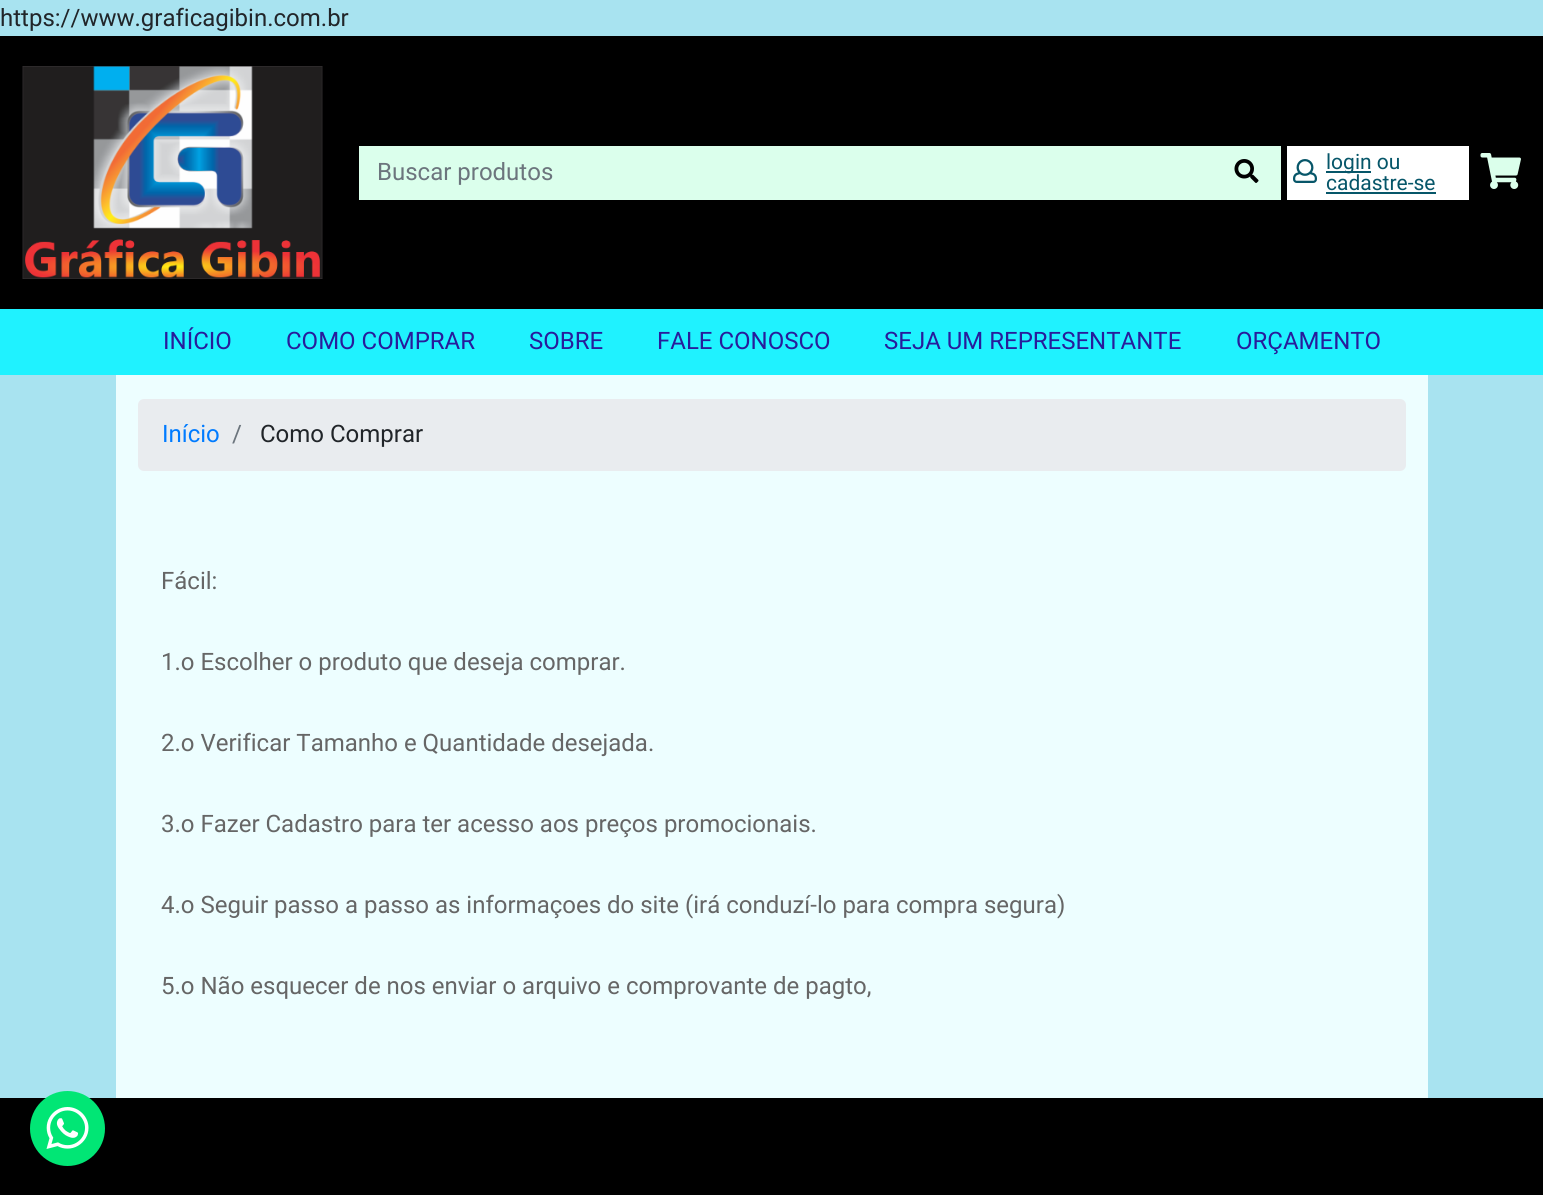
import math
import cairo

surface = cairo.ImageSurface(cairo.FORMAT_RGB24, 1543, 1195)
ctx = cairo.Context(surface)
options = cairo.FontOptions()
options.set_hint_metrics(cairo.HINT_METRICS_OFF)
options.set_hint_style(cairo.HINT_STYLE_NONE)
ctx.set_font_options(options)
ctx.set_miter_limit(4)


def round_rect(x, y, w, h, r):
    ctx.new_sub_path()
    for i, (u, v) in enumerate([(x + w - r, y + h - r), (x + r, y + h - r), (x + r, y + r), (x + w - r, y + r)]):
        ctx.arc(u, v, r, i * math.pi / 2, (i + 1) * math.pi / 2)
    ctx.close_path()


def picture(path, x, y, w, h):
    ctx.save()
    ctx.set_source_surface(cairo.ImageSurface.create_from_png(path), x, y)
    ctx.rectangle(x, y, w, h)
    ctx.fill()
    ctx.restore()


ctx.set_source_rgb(0.659, 0.89, 0.941)
ctx.paint()
ctx.select_font_face("Roboto")
ctx.set_font_size(24)
ctx.set_source_rgb(0.129, 0.145, 0.161)
ctx.move_to(0, 26)
ctx.show_text("https://www.graficagibin.com.br")
ctx.set_source_rgb(0, 0, 0)
ctx.rectangle(0, 36, 1543, 273)
ctx.fill()
picture("img1.png", 22, 66, 301, 213)
ctx.set_source_rgb(0.859, 1, 0.922)
ctx.rectangle(359, 146, 922, 54)
ctx.fill()
picture("img2.png", 1234, 159, 25, 24)
ctx.set_source_rgb(0.424, 0.459, 0.49)
ctx.move_to(377, 180)
ctx.show_text("Buscar produtos")
ctx.set_source_rgb(1, 1, 1)
ctx.rectangle(1287, 146, 182, 54)
ctx.fill()
picture("img3.png", 1293, 159, 24, 24)
ctx.set_source_rgb(0.027, 0.337, 0.412)
ctx.rectangle(1326, 171, 45, 2)
ctx.fill()
ctx.set_font_size(21)
ctx.move_to(1326, 169)
ctx.show_text("login ou")
ctx.move_to(1326, 190)
ctx.show_text("cadastre-se")
ctx.rectangle(1326, 192, 110, 2)
ctx.fill()
picture("img4.png", 1480, 153, 41, 36)
ctx.set_source_rgb(0.122, 0.949, 1)
ctx.rectangle(0, 309, 1543, 66)
ctx.fill()
ctx.set_font_size(24)
ctx.set_source_rgb(0.157, 0.11, 0.608)
ctx.move_to(163, 349)
ctx.show_text("INÍCIO")
ctx.move_to(286, 349)
ctx.show_text("COMO COMPRAR")
ctx.move_to(529, 349)
ctx.show_text("SOBRE")
ctx.move_to(657, 349)
ctx.show_text("FALE CONOSCO")
ctx.move_to(884, 349)
ctx.show_text("SEJA UM REPRESENTANTE")
ctx.move_to(1236, 349)
ctx.show_text("ORÇAMENTO")
ctx.set_source_rgb(0.929, 0.996, 1)
ctx.rectangle(116, 375, 1312, 723)
ctx.fill()
ctx.set_source_rgb(0.914, 0.925, 0.937)
round_rect(138, 399, 1268, 72, 6)
ctx.fill()
ctx.set_source_rgb(0, 0.482, 1)
ctx.move_to(162, 442)
ctx.show_text("Início")
ctx.set_source_rgb(0.424, 0.459, 0.49)
ctx.move_to(232, 442)
ctx.show_text("/")
ctx.set_source_rgb(0.129, 0.145, 0.161)
ctx.move_to(260, 442)
ctx.show_text("Como Comprar")
ctx.set_source_rgb(0.4, 0.4, 0.4)
ctx.move_to(161, 589)
ctx.show_text("Fácil:")
ctx.move_to(161, 670)
ctx.show_text("1.o Escolher o produto que deseja comprar.")
ctx.move_to(161, 751)
ctx.show_text("2.o Verificar Tamanho e Quantidade desejada.")
ctx.move_to(161, 832)
ctx.show_text("3.o Fazer Cadastro para ter acesso aos preços promocionais.")
ctx.move_to(161, 913)
ctx.show_text("4.o Seguir passo a passo as informaçoes do site (irá conduzí-lo para compra segura)")
ctx.move_to(161, 994)
ctx.show_text("5.o Não esquecer de nos enviar o arquivo e comprovante de pagto,")
ctx.set_source_rgb(0, 0, 0)
ctx.rectangle(0, 1098, 1543, 97)
ctx.fill()
ctx.set_source_rgb(0.004, 0.902, 0.459)
ctx.arc(67.5, 1128.5, 37.5, 0, 2 * math.pi)
ctx.fill()
picture("img5.png", 46, 1107, 43, 42)
surface.write_to_png("page.png")
